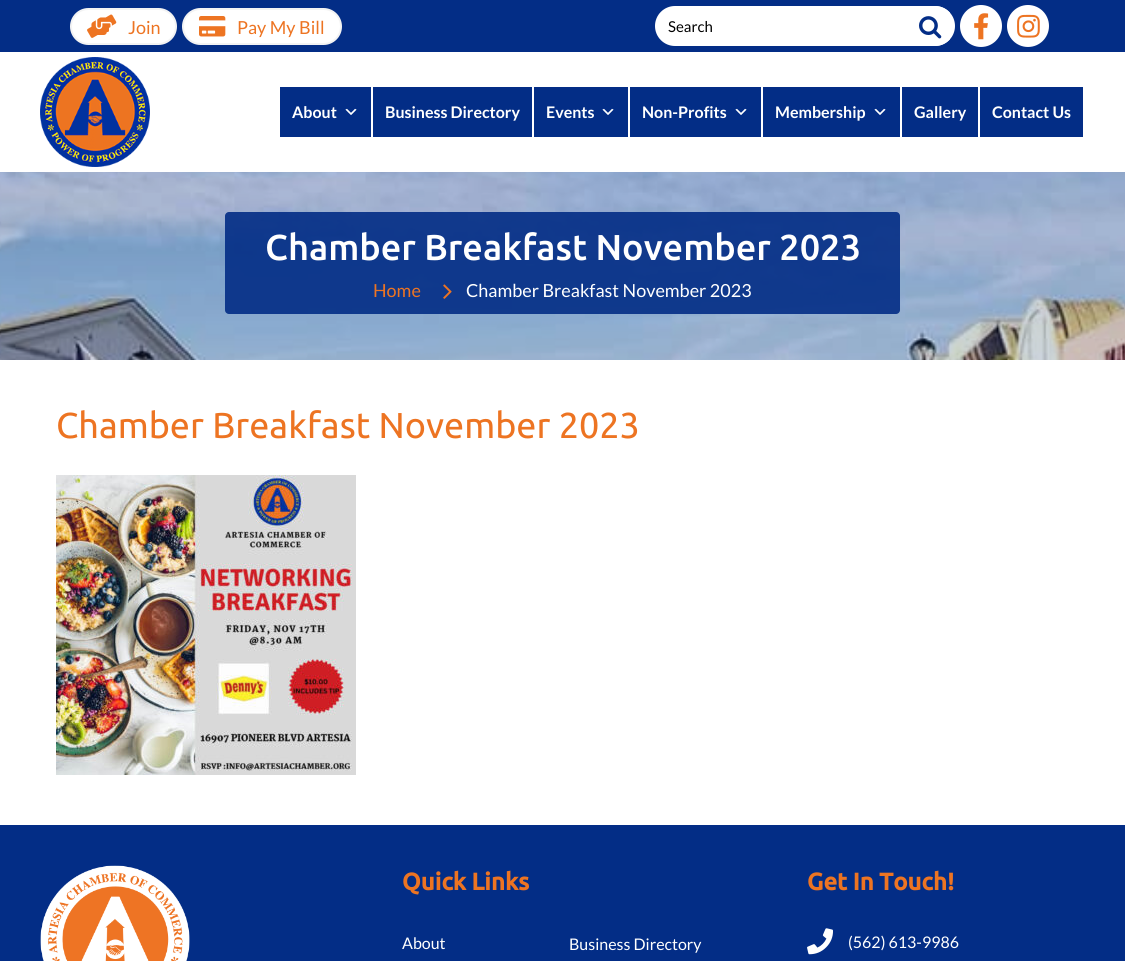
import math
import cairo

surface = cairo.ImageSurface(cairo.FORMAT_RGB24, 1125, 961)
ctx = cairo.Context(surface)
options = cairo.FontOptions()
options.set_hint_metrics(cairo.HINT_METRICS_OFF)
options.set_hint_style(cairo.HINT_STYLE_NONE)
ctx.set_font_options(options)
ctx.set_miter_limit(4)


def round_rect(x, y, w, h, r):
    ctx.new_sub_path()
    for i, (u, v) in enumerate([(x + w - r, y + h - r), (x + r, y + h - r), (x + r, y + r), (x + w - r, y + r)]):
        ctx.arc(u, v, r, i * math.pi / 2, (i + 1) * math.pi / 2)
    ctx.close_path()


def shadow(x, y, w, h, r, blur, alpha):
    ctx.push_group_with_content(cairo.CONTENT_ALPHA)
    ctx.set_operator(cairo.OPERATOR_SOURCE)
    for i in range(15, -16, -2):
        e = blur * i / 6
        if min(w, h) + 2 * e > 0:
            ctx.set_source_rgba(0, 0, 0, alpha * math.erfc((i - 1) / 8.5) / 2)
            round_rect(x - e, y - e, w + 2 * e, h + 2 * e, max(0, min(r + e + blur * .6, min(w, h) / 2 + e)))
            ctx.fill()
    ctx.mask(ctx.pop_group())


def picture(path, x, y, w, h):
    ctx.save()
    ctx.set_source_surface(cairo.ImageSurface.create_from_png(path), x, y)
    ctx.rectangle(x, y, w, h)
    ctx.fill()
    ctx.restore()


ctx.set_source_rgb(1, 1, 1)
ctx.paint()
ctx.set_source_rgb(0.012, 0.176, 0.525)
ctx.rectangle(0, 0, 1125, 52)
ctx.fill()
ctx.set_source_rgb(1, 1, 1)
round_rect(71, 9, 105, 35, 17.5)
ctx.fill_preserve()
ctx.set_source_rgb(0.953, 0.953, 0.953)
ctx.stroke()
picture("img1.png", 87, 14, 30, 24)
ctx.select_font_face("Lato")
ctx.set_font_size(18)
ctx.set_source_rgb(0.929, 0.455, 0.133)
ctx.move_to(128, 34)
ctx.show_text("Join")
ctx.set_source_rgb(1, 1, 1)
round_rect(183, 9, 158, 35, 17.5)
ctx.fill_preserve()
ctx.set_source_rgb(0.953, 0.953, 0.953)
ctx.stroke()
picture("img2.png", 199, 16, 27, 21)
ctx.set_source_rgb(0.929, 0.455, 0.133)
ctx.move_to(237, 34)
ctx.show_text("Pay My Bill")
ctx.set_source_rgb(1, 1, 1)
ctx.new_path()
ctx.arc(981, 26, 21, 0, 2 * math.pi)
ctx.fill()
picture("img4.png", 974, 13, 15, 27)
ctx.arc(1028, 26, 21, 0, 2 * math.pi)
ctx.fill()
picture("img5.png", 1017, 14, 23, 24)
ctx.save()
ctx.rectangle(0, 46, 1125, 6)
ctx.clip()
ctx.set_source_rgb(0.012, 0.176, 0.525)
shadow(0, 52, 1125, 120, 0, 5, 0.18)
ctx.restore()
round_rect(655, 6, 300, 40, 20)
ctx.fill()
ctx.set_font_size(15)
ctx.set_source_rgb(0, 0, 0)
ctx.move_to(668, 32)
ctx.show_text("Search")
ctx.save()
round_rect(655, 6, 300, 40, 20)
ctx.clip()
ctx.set_source_rgb(1, 1, 1)
ctx.rectangle(910, 6, 40, 40)
ctx.fill()
ctx.restore()
picture("img3.png", 919, 16, 23, 23)
picture("img6.png", 40, 57, 110, 110)
ctx.set_source_rgb(0.012, 0.176, 0.525)
ctx.rectangle(280, 87, 91, 50)
ctx.fill()
ctx.select_font_face("Lato", cairo.FONT_SLANT_NORMAL, cairo.FONT_WEIGHT_BOLD)
ctx.set_font_size(16)
ctx.set_source_rgb(1, 1, 1)
ctx.move_to(292, 118)
ctx.show_text("About")
picture("img7.png", 345, 108, 12, 7)
ctx.set_source_rgb(0.012, 0.176, 0.525)
ctx.rectangle(373, 87, 159, 50)
ctx.fill()
ctx.set_source_rgb(1, 1, 1)
ctx.move_to(385, 118)
ctx.show_text("Business Directory")
ctx.set_source_rgb(0.012, 0.176, 0.525)
ctx.rectangle(534, 87, 94, 50)
ctx.fill()
ctx.set_source_rgb(1, 1, 1)
ctx.move_to(546, 118)
ctx.show_text("Events")
picture("img7.png", 602, 108, 12, 7)
ctx.set_source_rgb(0.012, 0.176, 0.525)
ctx.rectangle(630, 87, 131, 50)
ctx.fill()
ctx.set_source_rgb(1, 1, 1)
ctx.move_to(642, 118)
ctx.show_text("Non-Profits")
picture("img7.png", 735, 108, 12, 7)
ctx.set_source_rgb(0.012, 0.176, 0.525)
ctx.rectangle(763, 87, 137, 50)
ctx.fill()
ctx.set_source_rgb(1, 1, 1)
ctx.move_to(775, 118)
ctx.show_text("Membership")
picture("img7.png", 874, 108, 12, 7)
ctx.set_source_rgb(0.012, 0.176, 0.525)
ctx.rectangle(902, 87, 76, 50)
ctx.fill()
ctx.set_source_rgb(1, 1, 1)
ctx.move_to(914, 118)
ctx.show_text("Gallery")
ctx.set_source_rgb(0.012, 0.176, 0.525)
ctx.rectangle(980, 87, 103, 50)
ctx.fill()
ctx.set_source_rgb(1, 1, 1)
ctx.move_to(992, 118)
ctx.show_text("Contact Us")
picture("img8.png", 0, 172, 1125, 188)
ctx.set_source_rgba(0.012, 0.176, 0.525, 0.9)
round_rect(225, 212, 675, 102, 4)
ctx.fill()
ctx.select_font_face("Ubuntu Medium")
ctx.set_font_size(36)
ctx.set_source_rgb(1, 1, 1)
ctx.move_to(265, 260)
ctx.show_text("Chamber Breakfast November 2023")
ctx.select_font_face("Lato")
ctx.set_font_size(18)
ctx.set_source_rgb(0.929, 0.455, 0.133)
ctx.move_to(373, 297)
ctx.show_text("Home")
picture("img9.png", 443, 284, 9, 15)
ctx.set_source_rgb(1, 1, 1)
ctx.move_to(466, 297)
ctx.show_text("Chamber Breakfast November 2023")
ctx.select_font_face("Ubuntu")
ctx.set_font_size(36)
ctx.set_source_rgb(0.929, 0.455, 0.133)
ctx.move_to(56, 438)
ctx.show_text("Chamber Breakfast November 2023")
picture("img10.png", 56, 475, 300, 300)
ctx.set_source_rgb(0.012, 0.176, 0.525)
ctx.rectangle(0, 825, 1125, 136)
ctx.fill()
picture("img11.png", 40, 865, 150, 96)
ctx.select_font_face("Ubuntu", cairo.FONT_SLANT_NORMAL, cairo.FONT_WEIGHT_BOLD)
ctx.set_font_size(24)
ctx.set_source_rgb(0.929, 0.455, 0.133)
ctx.move_to(402, 890)
ctx.show_text("Quick Links")
ctx.select_font_face("Lato")
ctx.set_font_size(16)
ctx.set_source_rgb(1, 1, 1)
ctx.move_to(402, 949)
ctx.show_text("About")
ctx.move_to(569, 950)
ctx.show_text("Business Directory")
ctx.select_font_face("Ubuntu", cairo.FONT_SLANT_NORMAL, cairo.FONT_WEIGHT_BOLD)
ctx.set_font_size(24)
ctx.set_source_rgb(0.929, 0.455, 0.133)
ctx.move_to(807, 890)
ctx.show_text("Get In Touch!")
picture("img12.png", 807, 928, 26, 27)
ctx.select_font_face("Lato")
ctx.set_font_size(16)
ctx.set_source_rgb(1, 1, 1)
ctx.move_to(848, 948)
ctx.show_text("(562) 613-9986")
surface.write_to_png("page.png")
